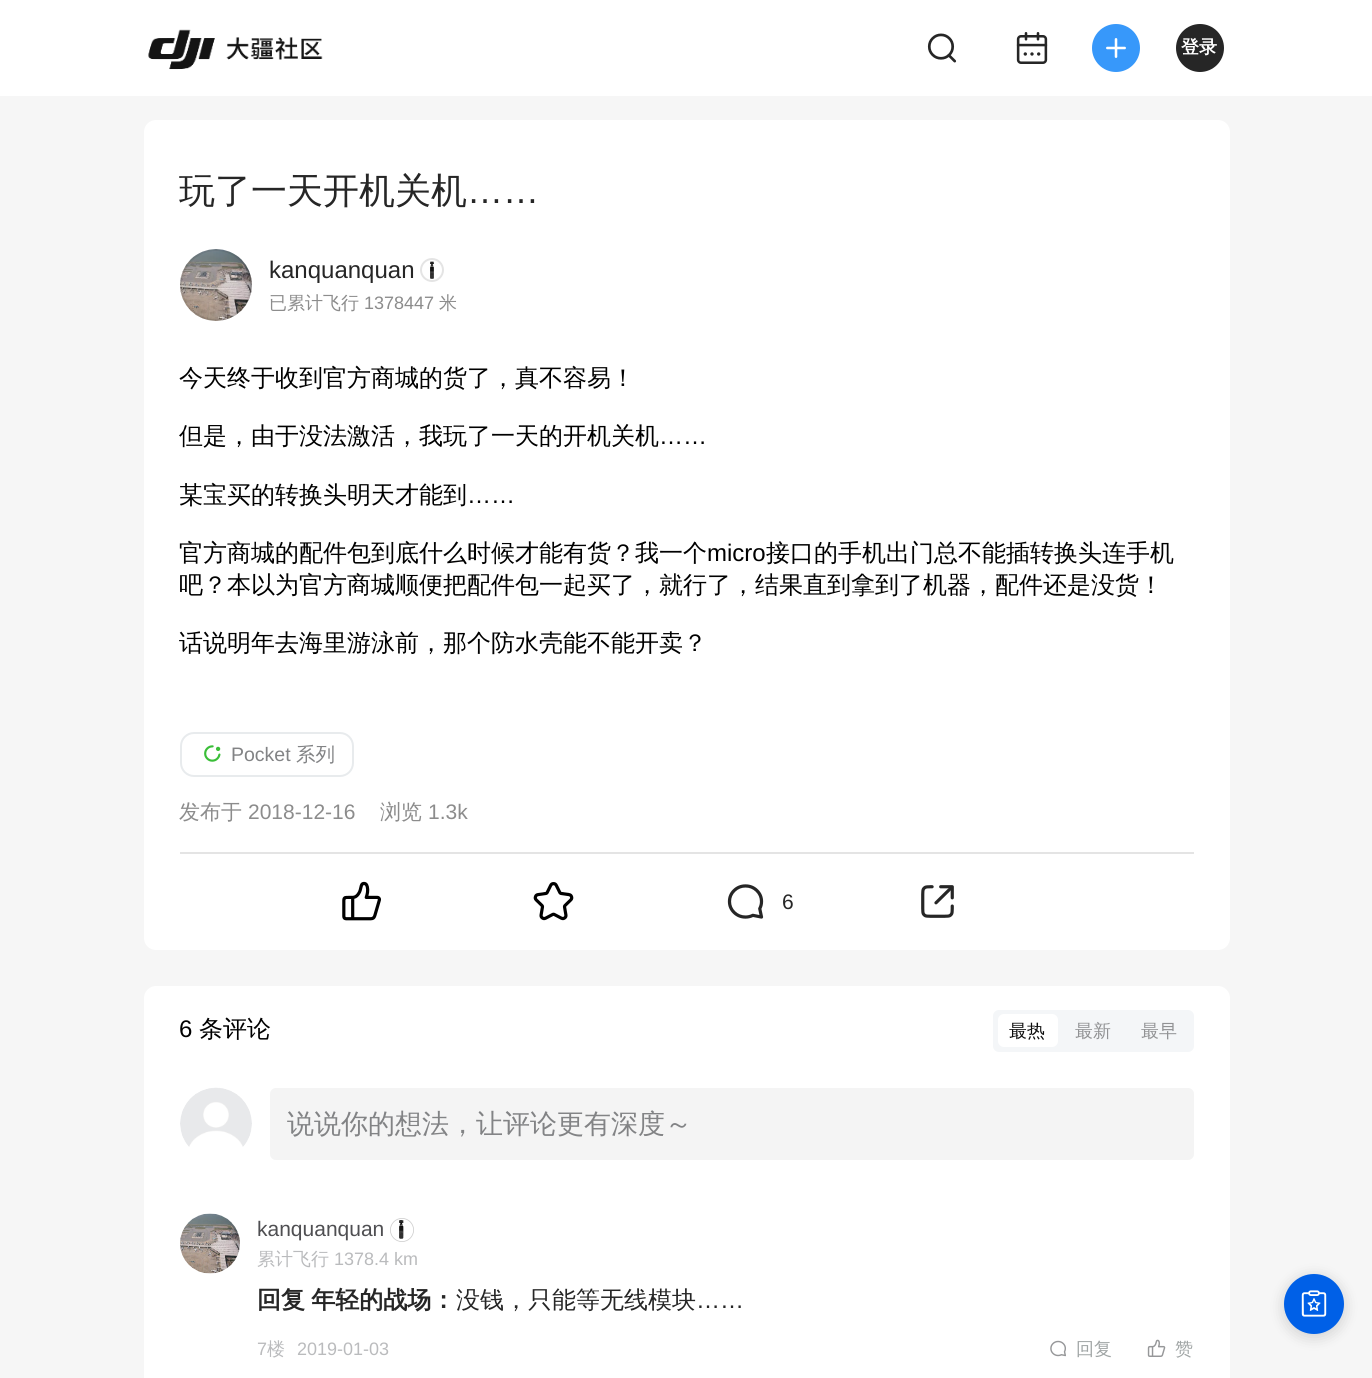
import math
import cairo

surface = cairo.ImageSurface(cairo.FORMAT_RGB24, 1372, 1378)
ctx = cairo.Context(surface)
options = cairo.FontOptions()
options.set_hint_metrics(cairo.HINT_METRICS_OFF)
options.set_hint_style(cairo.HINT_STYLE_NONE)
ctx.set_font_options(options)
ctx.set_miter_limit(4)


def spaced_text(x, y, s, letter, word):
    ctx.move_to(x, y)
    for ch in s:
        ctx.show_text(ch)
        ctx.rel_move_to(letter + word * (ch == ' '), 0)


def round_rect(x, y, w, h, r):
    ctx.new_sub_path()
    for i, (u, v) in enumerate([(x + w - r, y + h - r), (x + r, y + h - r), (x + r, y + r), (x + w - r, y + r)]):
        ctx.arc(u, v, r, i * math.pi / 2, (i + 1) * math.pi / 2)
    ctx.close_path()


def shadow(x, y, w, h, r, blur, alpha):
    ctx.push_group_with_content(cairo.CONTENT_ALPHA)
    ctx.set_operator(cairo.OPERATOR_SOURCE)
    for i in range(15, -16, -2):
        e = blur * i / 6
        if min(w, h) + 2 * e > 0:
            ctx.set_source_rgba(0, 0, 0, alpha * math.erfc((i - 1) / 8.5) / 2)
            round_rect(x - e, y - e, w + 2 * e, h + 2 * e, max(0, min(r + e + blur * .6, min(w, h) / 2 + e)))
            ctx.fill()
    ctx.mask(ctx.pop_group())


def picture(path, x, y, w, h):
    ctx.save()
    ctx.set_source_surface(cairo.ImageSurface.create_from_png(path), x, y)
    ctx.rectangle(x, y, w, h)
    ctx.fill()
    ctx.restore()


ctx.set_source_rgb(0.961, 0.961, 0.961)
ctx.paint()
ctx.set_source_rgb(1, 1, 1)
ctx.rectangle(0, 0, 1372, 96)
ctx.fill()
picture("img1.png", 148, 29, 175, 41)
picture("img2.png", 927, 33, 30, 30)
picture("img3.png", 1016, 32, 32, 32)
ctx.set_source_rgb(0.216, 0.596, 0.98)
ctx.arc(1116, 48, 24, 0, 2 * math.pi)
ctx.fill()
picture("img4.png", 1106, 38, 20, 20)
ctx.set_source_rgb(0.149, 0.149, 0.149)
ctx.arc(1200, 48, 24, 0, 2 * math.pi)
ctx.fill()
ctx.select_font_face("WenQuanYi Zen Hei", cairo.FONT_SLANT_NORMAL, cairo.FONT_WEIGHT_BOLD)
ctx.set_font_size(18)
ctx.set_source_rgb(1, 1, 1)
ctx.move_to(1181, 53)
ctx.show_text("登录")
round_rect(144, 120, 1086, 830, 12)
ctx.fill()
ctx.select_font_face("WenQuanYi Zen Hei Medium")
ctx.set_font_size(36)
ctx.set_source_rgb(0.149, 0.149, 0.149)
ctx.move_to(179, 203)
ctx.show_text("玩了一天开机关机")
ctx.select_font_face("Liberation Sans")
ctx.move_to(467, 203)
ctx.show_text("……")
picture("img5.png", 180, 249, 72, 72)
ctx.arc(216, 285, 35, 0, 2 * math.pi)
ctx.set_source_rgba(0, 0, 0, 0.08)
ctx.stroke()
ctx.set_font_size(24)
ctx.set_source_rgb(0.149, 0.149, 0.149)
ctx.move_to(269, 278)
ctx.show_text("kanquanquan")
ctx.new_path()
ctx.arc(432, 270, 11, 0, 2 * math.pi)
ctx.set_source_rgb(0.894, 0.894, 0.894)
ctx.stroke()
picture("img6.png", 430, 261, 4, 18)
ctx.select_font_face("WenQuanYi Zen Hei Medium")
ctx.set_font_size(18)
ctx.set_source_rgb(0.549, 0.549, 0.549)
ctx.move_to(269, 309)
ctx.show_text("已累计飞行")
ctx.select_font_face("Liberation Sans")
ctx.move_to(364, 309)
ctx.show_text("1378447")
ctx.select_font_face("WenQuanYi Zen Hei Medium")
ctx.move_to(439, 309)
ctx.show_text("米")
ctx.set_font_size(24)
ctx.set_source_rgb(0, 0, 0)
ctx.move_to(179, 386)
ctx.show_text("今天终于收到官方商城的货了，真不容易！")
ctx.move_to(179, 444)
ctx.show_text("但是，由于没法激活，我玩了一天的开机关机")
ctx.select_font_face("Liberation Sans")
ctx.move_to(659, 444)
ctx.show_text("……")
ctx.select_font_face("WenQuanYi Zen Hei Medium")
ctx.move_to(179, 503)
ctx.show_text("某宝买的转换头明天才能到")
ctx.select_font_face("Liberation Sans")
ctx.move_to(467, 503)
ctx.show_text("……")
ctx.select_font_face("WenQuanYi Zen Hei Medium")
ctx.move_to(179, 561)
ctx.show_text("官方商城的配件包到底什么时候才能有货？我一个")
ctx.select_font_face("Liberation Sans")
ctx.move_to(707, 561)
ctx.show_text("micro")
ctx.select_font_face("WenQuanYi Zen Hei Medium")
ctx.move_to(766, 561)
ctx.show_text("接口的手机出门总不能插转换头连手机")
ctx.move_to(179, 593)
ctx.show_text("吧？本以为官方商城顺便把配件包一起买了，就行了，结果直到拿到了机器，配件还是没货！")
ctx.move_to(179, 651)
ctx.show_text("话说明年去海里游泳前，那个防水壳能不能开卖？")
round_rect(181, 733, 172, 43, 13)
ctx.set_source_rgb(0.91, 0.918, 0.929)
ctx.stroke()
picture("img7.png", 204, 745, 17, 17)
ctx.select_font_face("Liberation Sans")
ctx.set_font_size(19.5)
ctx.set_source_rgb(0.51, 0.514, 0.522)
ctx.move_to(231, 761)
ctx.show_text("Pocket")
ctx.select_font_face("WenQuanYi Zen Hei Medium")
ctx.move_to(296, 761)
ctx.show_text("系列")
ctx.set_font_size(21)
ctx.set_source_rgb(0.549, 0.549, 0.549)
ctx.move_to(179, 819)
ctx.show_text("发布于")
ctx.select_font_face("Liberation Sans")
ctx.move_to(248, 819)
ctx.show_text("2018-12-16")
ctx.select_font_face("WenQuanYi Zen Hei Medium")
ctx.move_to(380, 819)
ctx.show_text("浏览")
ctx.select_font_face("Liberation Sans")
ctx.move_to(428, 819)
ctx.show_text("1.3k")
ctx.set_source_rgb(0.894, 0.894, 0.894)
ctx.rectangle(180, 852, 1014, 2)
ctx.fill()
picture("img8.png", 342, 881, 39, 40)
picture("img9.png", 533, 882, 41, 39)
picture("img10.png", 727, 884, 37, 35)
ctx.set_source_rgb(0.149, 0.149, 0.149)
ctx.move_to(782, 909)
ctx.show_text("6")
picture("img11.png", 921, 885, 33, 33)
ctx.set_source_rgb(1, 1, 1)
ctx.new_path()
ctx.move_to(156, 986)
ctx.line_to(1218, 986)
ctx.curve_to(1224.5, 986, 1230, 991.5, 1230, 998)
ctx.line_to(1230, 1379)
ctx.line_to(144, 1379)
ctx.line_to(144, 998)
ctx.curve_to(144, 991.5, 149.5, 986, 156, 986)
ctx.close_path()
ctx.fill()
ctx.set_font_size(24)
ctx.set_source_rgb(0, 0, 0)
ctx.move_to(179, 1037)
ctx.show_text("6")
ctx.select_font_face("WenQuanYi Zen Hei Medium")
ctx.move_to(199, 1037)
ctx.show_text("条评论")
ctx.set_source_rgb(0.957, 0.961, 0.969)
round_rect(993, 1010, 201, 42, 6)
ctx.fill()
ctx.set_source_rgb(1, 1, 1)
round_rect(998, 1014, 60, 33, 6)
ctx.fill()
ctx.set_font_size(18)
ctx.set_source_rgb(0.047, 0.047, 0.047)
ctx.move_to(1009, 1037)
ctx.show_text("最热")
ctx.set_source_rgb(0.569, 0.573, 0.58)
ctx.move_to(1075, 1037)
ctx.show_text("最新")
ctx.move_to(1141, 1037)
ctx.show_text("最早")
picture("img12.png", 180, 1087, 72, 60)
ctx.set_source_rgb(0.957, 0.957, 0.957)
round_rect(270, 1088, 924, 72, 6)
ctx.fill()
ctx.set_font_size(27)
ctx.set_source_rgb(0.51, 0.514, 0.522)
ctx.move_to(287, 1133)
ctx.show_text("说说你的想法，让评论更有深度～")
picture("img13.png", 180, 1213, 60, 61)
ctx.select_font_face("Liberation Sans")
ctx.set_font_size(21)
ctx.set_source_rgb(0.31, 0.31, 0.322)
ctx.move_to(257, 1236)
ctx.show_text("kanquanquan")
ctx.new_path()
ctx.arc(402, 1230, 11.6, 0, 2 * math.pi)
ctx.set_source_rgb(0.808, 0.808, 0.808)
ctx.set_line_width(0.8)
ctx.stroke()
picture("img14.png", 399, 1220, 5, 19)
ctx.select_font_face("WenQuanYi Zen Hei Medium")
ctx.set_font_size(18)
ctx.set_source_rgb(0.729, 0.733, 0.741)
ctx.move_to(257, 1265)
ctx.show_text("累计飞行")
ctx.select_font_face("Liberation Sans")
ctx.move_to(334, 1265)
ctx.show_text("1378.4 km")
ctx.select_font_face("WenQuanYi Zen Hei", cairo.FONT_SLANT_NORMAL, cairo.FONT_WEIGHT_BOLD)
ctx.set_font_size(24)
ctx.set_source_rgb(0.149, 0.149, 0.149)
spaced_text(257, 1308, "回复 年轻的战场：", 0, -1)
ctx.select_font_face("WenQuanYi Zen Hei Medium")
ctx.move_to(456, 1308)
ctx.show_text("没钱，只能等无线模块")
ctx.select_font_face("Liberation Sans")
ctx.move_to(696, 1308)
ctx.show_text("……")
ctx.set_font_size(18)
ctx.set_source_rgb(0.729, 0.733, 0.741)
ctx.move_to(257, 1355)
ctx.show_text("7")
ctx.select_font_face("WenQuanYi Zen Hei Medium")
ctx.move_to(267, 1355)
ctx.show_text("楼")
ctx.select_font_face("Liberation Sans")
ctx.move_to(297, 1355)
ctx.show_text("2019-01-03")
picture("img15.png", 1050, 1340, 16, 17)
ctx.select_font_face("WenQuanYi Zen Hei Medium")
ctx.set_source_rgb(0.627, 0.647, 0.647)
ctx.move_to(1076, 1355)
ctx.show_text("回复")
picture("img16.png", 1147, 1339, 19, 18)
ctx.move_to(1175, 1355)
ctx.show_text("赞")
ctx.set_source_rgb(0, 0, 0)
shadow(1284, 1277, 60, 60, 30, 7.5, 0.16)
ctx.set_source_rgb(0, 0.376, 0.906)
ctx.arc(1314, 1304, 30, 0, 2 * math.pi)
ctx.fill()
picture("img17.png", 1301, 1290, 26, 27)
surface.write_to_png("page.png")
